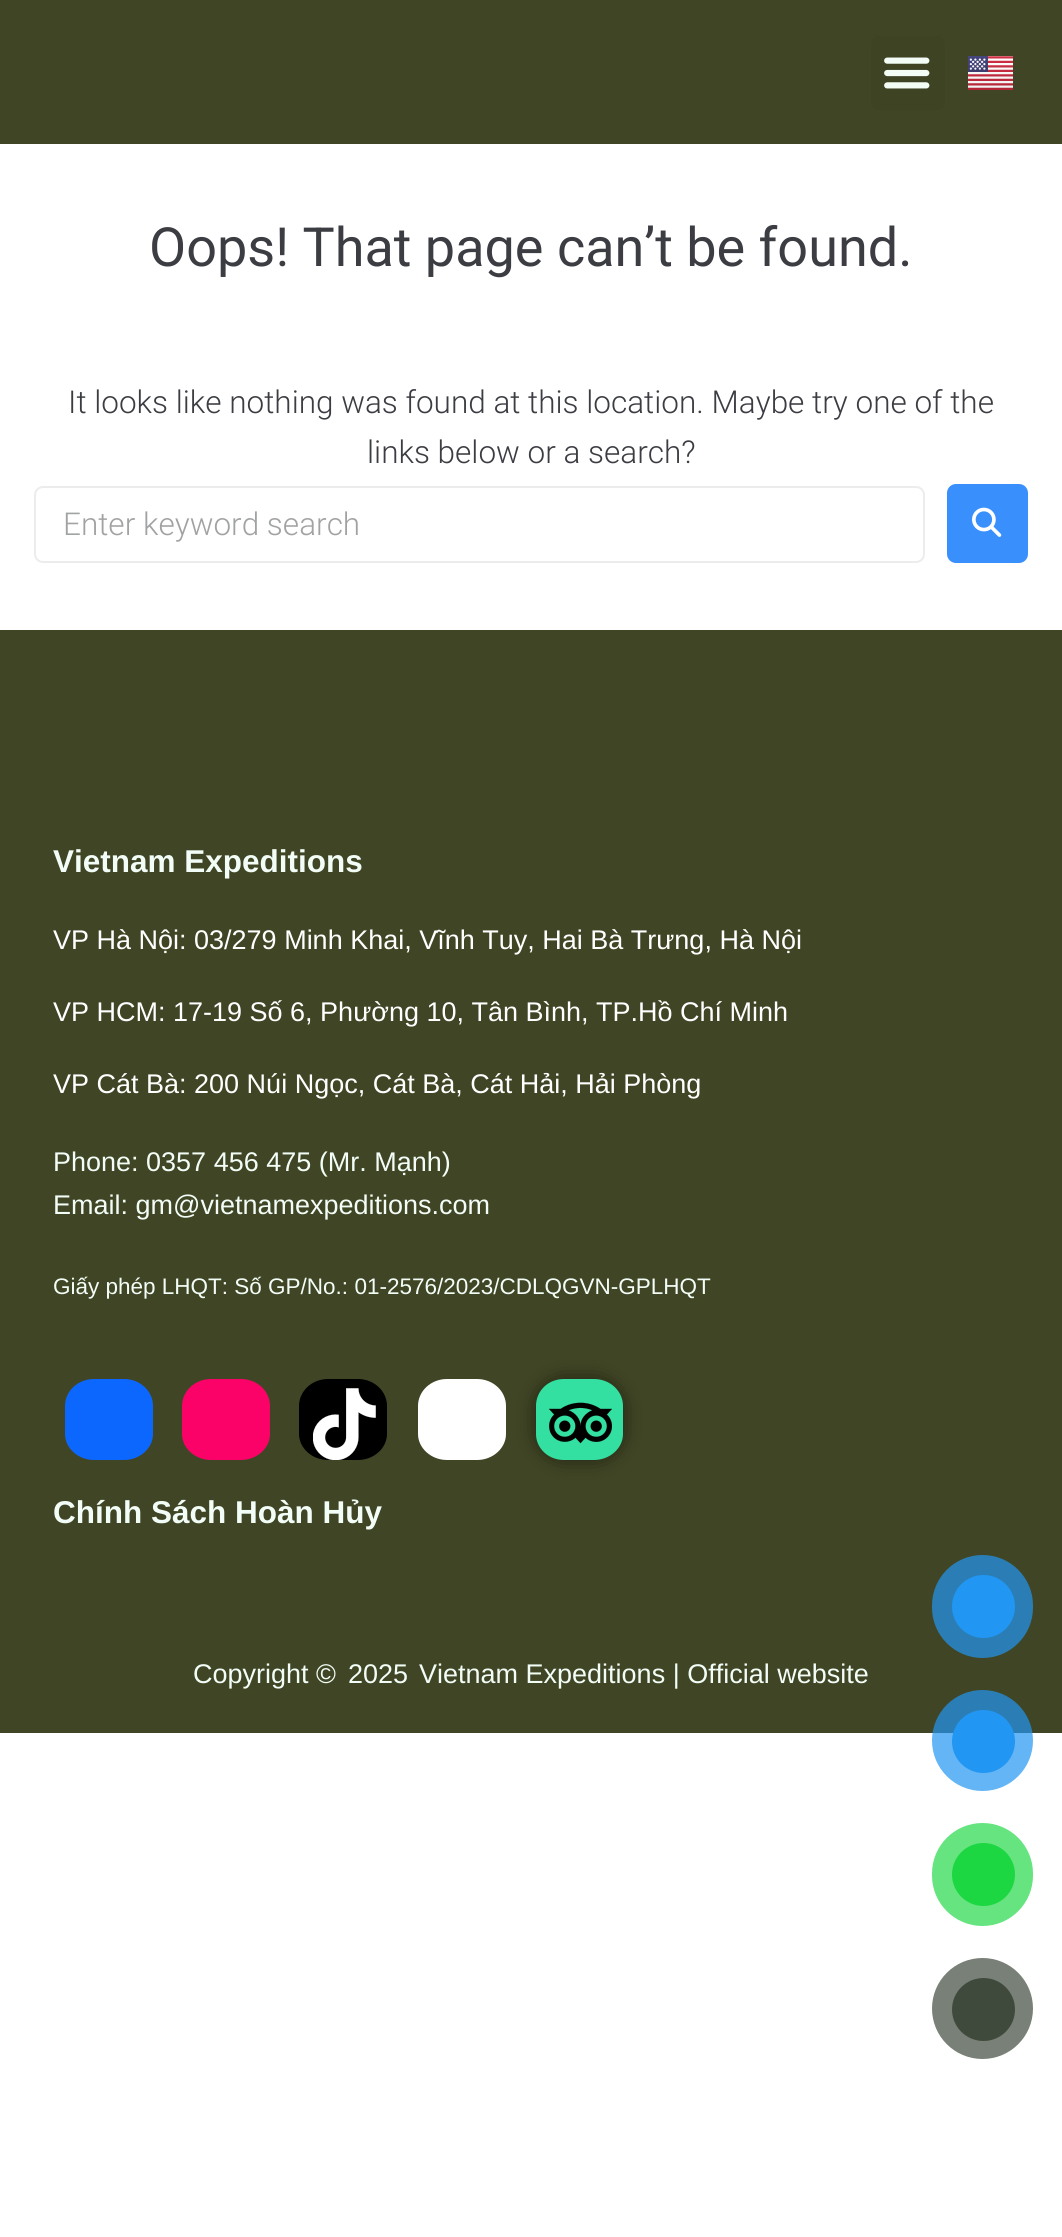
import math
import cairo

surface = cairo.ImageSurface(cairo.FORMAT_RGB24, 1062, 2237)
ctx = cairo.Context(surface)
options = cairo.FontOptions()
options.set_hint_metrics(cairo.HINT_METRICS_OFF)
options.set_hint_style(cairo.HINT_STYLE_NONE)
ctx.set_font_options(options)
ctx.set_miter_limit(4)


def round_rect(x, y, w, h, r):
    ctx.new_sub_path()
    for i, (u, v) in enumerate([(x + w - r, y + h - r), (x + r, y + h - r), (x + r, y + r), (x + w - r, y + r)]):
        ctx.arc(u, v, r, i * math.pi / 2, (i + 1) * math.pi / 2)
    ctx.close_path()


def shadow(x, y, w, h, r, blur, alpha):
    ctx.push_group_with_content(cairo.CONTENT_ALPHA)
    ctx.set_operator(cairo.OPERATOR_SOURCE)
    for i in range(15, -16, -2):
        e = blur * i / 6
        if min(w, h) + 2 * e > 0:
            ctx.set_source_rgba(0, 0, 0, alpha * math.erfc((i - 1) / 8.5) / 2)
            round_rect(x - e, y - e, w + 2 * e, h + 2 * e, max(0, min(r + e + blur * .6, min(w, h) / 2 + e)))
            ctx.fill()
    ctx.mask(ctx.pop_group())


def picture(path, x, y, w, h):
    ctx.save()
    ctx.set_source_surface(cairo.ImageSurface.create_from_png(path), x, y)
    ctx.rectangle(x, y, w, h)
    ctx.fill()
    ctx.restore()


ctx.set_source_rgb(1, 1, 1)
ctx.paint()
ctx.set_source_rgb(0.251, 0.275, 0.145)
ctx.rectangle(0, 0, 1062, 144)
ctx.fill()
ctx.set_source_rgb(0.239, 0.263, 0.137)
round_rect(871, 36, 74, 74, 7)
ctx.fill()
picture("img1.png", 884, 57, 46, 32)
picture("img2.png", 968, 56, 45, 34)
ctx.select_font_face("Roboto")
ctx.set_font_size(54)
ctx.set_source_rgb(0.231, 0.239, 0.259)
ctx.move_to(149, 266)
ctx.show_text("Oops! That page can’t be found.")
ctx.select_font_face("Roboto Light")
ctx.set_font_size(31.5)
ctx.move_to(68, 413)
ctx.show_text("It looks like nothing was found at this location. Maybe try one of the")
ctx.move_to(367, 463)
ctx.show_text("links below or a search?")
round_rect(35, 487, 889, 75, 8)
ctx.set_source_rgb(0.922, 0.925, 0.929)
ctx.stroke()
ctx.set_source_rgb(0.631, 0.635, 0.643)
ctx.move_to(63, 535)
ctx.show_text("Enter keyword search")
ctx.set_source_rgb(0.224, 0.561, 0.988)
round_rect(947, 484, 81, 79, 9)
ctx.fill()
picture("img3.png", 972, 507, 30, 30)
ctx.set_source_rgb(0.251, 0.275, 0.145)
ctx.rectangle(0, 630, 1062, 1103)
ctx.fill()
ctx.select_font_face("Liberation Sans", cairo.FONT_SLANT_NORMAL, cairo.FONT_WEIGHT_BOLD)
ctx.set_source_rgb(0.953, 0.992, 0.965)
ctx.move_to(53, 872)
ctx.show_text("Vietnam Expeditions")
ctx.select_font_face("Liberation Sans")
ctx.set_font_size(27)
ctx.set_source_rgb(1, 1, 1)
ctx.move_to(53, 949)
ctx.show_text("VP Hà Nội: 03/279 Minh Khai, Vĩnh Tuy, Hai Bà Trưng, Hà Nội")
ctx.move_to(53, 1021)
ctx.show_text("VP HCM: 17-19 Số 6, Phường 10, Tân Bình, TP.Hồ Chí Minh")
ctx.move_to(53, 1093)
ctx.show_text("VP Cát Bà: 200 Núi Ngọc, Cát Bà, Cát Hải, Hải Phòng")
ctx.set_source_rgb(0.953, 0.992, 0.965)
ctx.move_to(53, 1171)
ctx.show_text("Phone: 0357 456 475 (Mr. Mạnh)")
ctx.move_to(53, 1214)
ctx.show_text("Email: gm@vietnamexpeditions.com")
ctx.set_font_size(22.5)
ctx.move_to(53, 1294)
ctx.show_text("Giấy phép LHQT: Số GP/No.: 01-2576/2023/CDLQGVN-GPLHQT")
ctx.set_source_rgb(0.047, 0.404, 0.996)
ctx.new_path()
ctx.move_to(94, 1379)
ctx.line_to(124, 1379)
ctx.curve_to(140, 1379, 153, 1391, 153, 1406)
ctx.line_to(153, 1434)
ctx.curve_to(153, 1448, 140, 1460, 124, 1460)
ctx.line_to(94, 1460)
ctx.curve_to(78, 1460, 65, 1448, 65, 1434)
ctx.line_to(65, 1406)
ctx.curve_to(65, 1391, 78, 1379, 94, 1379)
ctx.close_path()
ctx.fill()
ctx.set_source_rgb(0.98, 0.008, 0.404)
ctx.new_path()
ctx.move_to(211, 1379)
ctx.line_to(241, 1379)
ctx.curve_to(257, 1379, 270, 1391, 270, 1406)
ctx.line_to(270, 1434)
ctx.curve_to(270, 1448, 257, 1460, 241, 1460)
ctx.line_to(211, 1460)
ctx.curve_to(195, 1460, 182, 1448, 182, 1434)
ctx.line_to(182, 1406)
ctx.curve_to(182, 1391, 195, 1379, 211, 1379)
ctx.close_path()
ctx.fill()
ctx.set_source_rgb(0, 0, 0)
ctx.new_path()
ctx.move_to(328, 1379)
ctx.line_to(358, 1379)
ctx.curve_to(374, 1379, 387, 1391, 387, 1406)
ctx.line_to(387, 1434)
ctx.curve_to(387, 1448, 374, 1460, 358, 1460)
ctx.line_to(328, 1460)
ctx.curve_to(312, 1460, 299, 1448, 299, 1434)
ctx.line_to(299, 1406)
ctx.curve_to(299, 1391, 312, 1379, 328, 1379)
ctx.close_path()
ctx.fill()
picture("img4.png", 313, 1388, 63, 72)
ctx.set_source_rgb(1, 1, 1)
ctx.new_path()
ctx.move_to(447, 1379)
ctx.line_to(477, 1379)
ctx.curve_to(493, 1379, 506, 1391, 506, 1406)
ctx.line_to(506, 1434)
ctx.curve_to(506, 1448, 493, 1460, 477, 1460)
ctx.line_to(447, 1460)
ctx.curve_to(431, 1460, 418, 1448, 418, 1434)
ctx.line_to(418, 1406)
ctx.curve_to(418, 1391, 431, 1379, 447, 1379)
ctx.close_path()
ctx.fill()
ctx.set_source_rgb(0, 0, 0)
shadow(536, 1379, 87, 81, 27, 11, 0.5)
ctx.set_source_rgb(0.204, 0.878, 0.631)
ctx.new_path()
ctx.move_to(564, 1379)
ctx.line_to(594, 1379)
ctx.curve_to(610, 1379, 623, 1391, 623, 1406)
ctx.line_to(623, 1434)
ctx.curve_to(623, 1448, 610, 1460, 594, 1460)
ctx.line_to(564, 1460)
ctx.curve_to(548, 1460, 536, 1448, 536, 1434)
ctx.line_to(536, 1406)
ctx.curve_to(536, 1391, 548, 1379, 564, 1379)
ctx.close_path()
ctx.fill()
picture("img5.png", 549, 1402, 63, 42)
ctx.select_font_face("Liberation Sans", cairo.FONT_SLANT_NORMAL, cairo.FONT_WEIGHT_BOLD)
ctx.set_font_size(31.5)
ctx.set_source_rgb(0.953, 0.992, 0.965)
ctx.move_to(53, 1523)
ctx.show_text("Chính Sách Hoàn Hủy")
ctx.select_font_face("Liberation Sans")
ctx.set_font_size(27)
ctx.move_to(193, 1683)
ctx.show_text("Copyright ©")
ctx.move_to(348, 1683)
ctx.show_text("2025")
ctx.move_to(419, 1683)
ctx.show_text("Vietnam Expeditions | Official website")
ctx.set_source_rgb(0.165, 0.494, 0.71)
round_rect(932, 1555, 101, 103, 50.5)
ctx.fill()
ctx.set_source_rgb(0.129, 0.588, 0.953)
ctx.arc(983.5, 1606.5, 31.5, 0, 2 * math.pi)
ctx.fill()
ctx.set_source_rgba(0.129, 0.588, 0.953, 0.7)
ctx.arc(982.5, 1740.5, 50.5, 0, 2 * math.pi)
ctx.fill()
ctx.set_source_rgb(0.129, 0.588, 0.953)
ctx.arc(983.5, 1741.5, 31.5, 0, 2 * math.pi)
ctx.fill()
ctx.set_source_rgb(0.396, 0.894, 0.498)
round_rect(932, 1823, 101, 103, 50.5)
ctx.fill()
ctx.set_source_rgb(0.11, 0.843, 0.255)
ctx.arc(983.5, 1874.5, 31.5, 0, 2 * math.pi)
ctx.fill()
ctx.set_source_rgb(0.475, 0.502, 0.467)
ctx.arc(982.5, 2008.5, 50.5, 0, 2 * math.pi)
ctx.fill()
ctx.set_source_rgb(0.247, 0.29, 0.235)
ctx.arc(983.5, 2009.5, 31.5, 0, 2 * math.pi)
ctx.fill()
surface.write_to_png("page.png")
